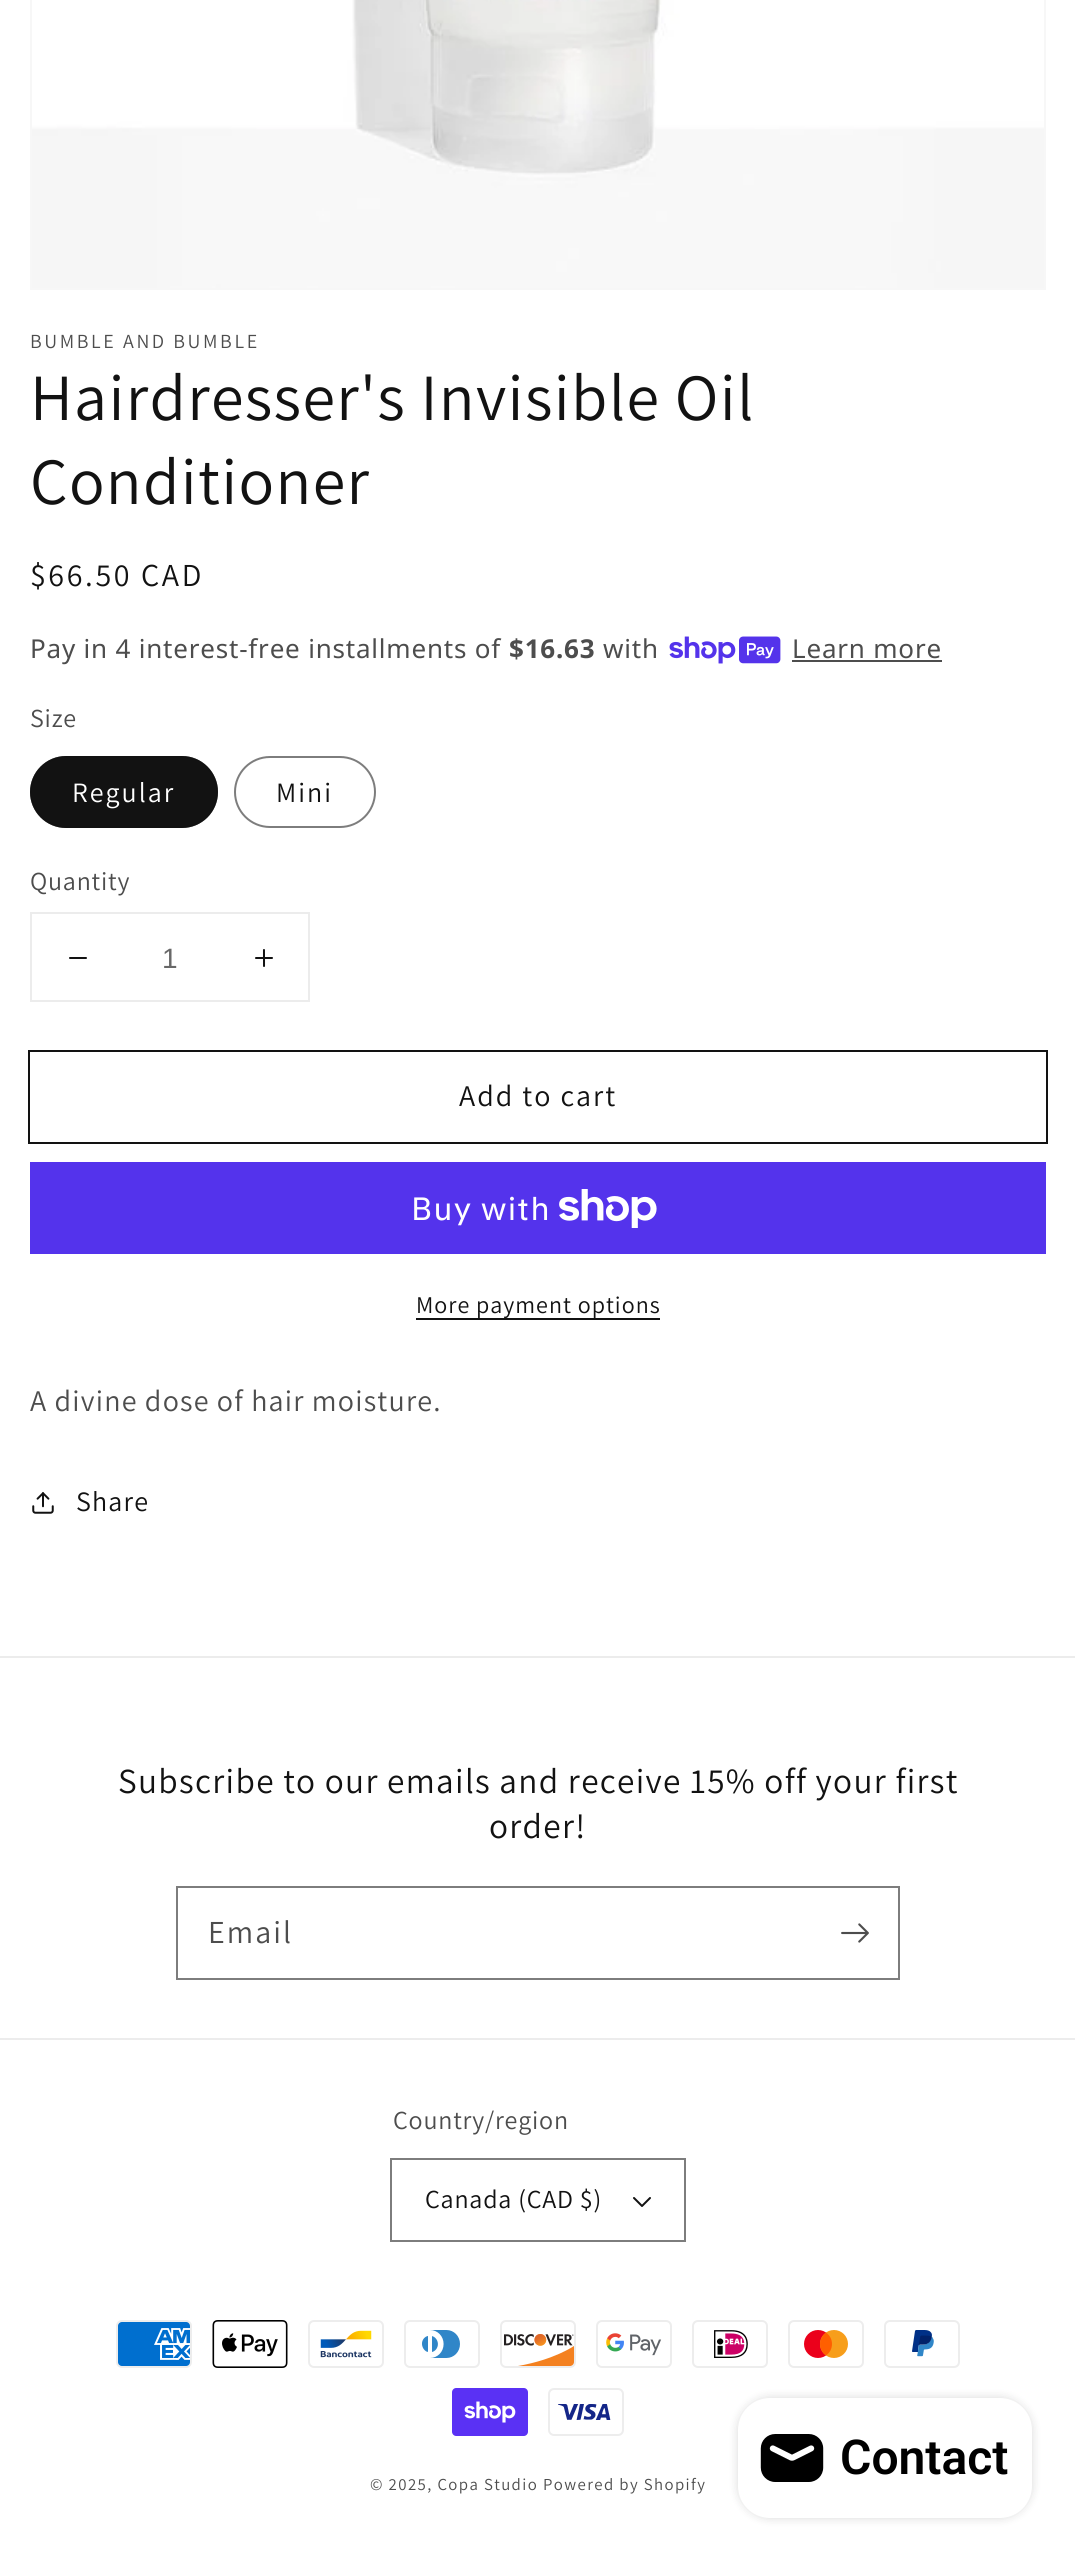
import math
import cairo

surface = cairo.ImageSurface(cairo.FORMAT_RGB24, 1075, 2560)
ctx = cairo.Context(surface)
options = cairo.FontOptions()
options.set_hint_metrics(cairo.HINT_METRICS_OFF)
options.set_hint_style(cairo.HINT_STYLE_NONE)
ctx.set_font_options(options)
ctx.set_miter_limit(4)


def spaced_text(x, y, s, letter, word):
    ctx.move_to(x, y)
    for ch in s:
        ctx.show_text(ch)
        ctx.rel_move_to(letter + word * (ch == ' '), 0)


def round_rect(x, y, w, h, r):
    ctx.new_sub_path()
    for i, (u, v) in enumerate([(x + w - r, y + h - r), (x + r, y + h - r), (x + r, y + r), (x + w - r, y + r)]):
        ctx.arc(u, v, r, i * math.pi / 2, (i + 1) * math.pi / 2)
    ctx.close_path()


def shadow(x, y, w, h, r, blur, alpha):
    ctx.push_group_with_content(cairo.CONTENT_ALPHA)
    ctx.set_operator(cairo.OPERATOR_SOURCE)
    for i in range(15, -16, -2):
        e = blur * i / 6
        if min(w, h) + 2 * e > 0:
            ctx.set_source_rgba(0, 0, 0, alpha * math.erfc((i - 1) / 8.5) / 2)
            round_rect(x - e, y - e, w + 2 * e, h + 2 * e, max(0, min(r + e + blur * .6, min(w, h) / 2 + e)))
            ctx.fill()
    ctx.mask(ctx.pop_group())


def picture(path, x, y, w, h):
    ctx.save()
    ctx.set_source_surface(cairo.ImageSurface.create_from_png(path), x, y)
    ctx.rectangle(x, y, w, h)
    ctx.fill()
    ctx.restore()


ctx.set_source_rgb(1, 1, 1)
ctx.paint()
ctx.rectangle(31, -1, 1014, 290)
ctx.set_source_rgb(0.965, 0.965, 0.965)
ctx.stroke()
picture("img1.png", 32, 0, 1012, 288)
ctx.select_font_face("Assistant")
ctx.set_font_size(20)
ctx.set_source_rgb(0.302, 0.302, 0.302)
spaced_text(30, 348, "BUMBLE AND BUMBLE", 2.6, 0)
ctx.set_font_size(66)
ctx.set_source_rgb(0.071, 0.071, 0.071)
spaced_text(30, 420, "Hairdresser's Invisible Oil", 1.32, 0)
spaced_text(30, 504, "Conditioner", 1.32, 0)
ctx.set_font_size(32)
spaced_text(30, 586, "$66.50 CAD", 2.6, 0)
ctx.select_font_face("Noto Sans")
ctx.set_font_size(26)
ctx.set_source_rgb(0.302, 0.302, 0.302)
spaced_text(30, 658, "Pay in 4 interest-free installments of", 0.8, 0)
ctx.select_font_face("Noto Sans", cairo.FONT_SLANT_NORMAL, cairo.FONT_WEIGHT_BOLD)
spaced_text(509, 658, "$16.63", 0.8, 0)
ctx.select_font_face("Noto Sans")
spaced_text(603, 658, "with", 0.8, 0)
picture("img2.png", 669, 636, 112, 28)
spaced_text(792, 658, "Learn more", 0.8, 0)
ctx.rectangle(792, 660, 150, 2)
ctx.fill()
ctx.select_font_face("Assistant")
spaced_text(30, 727, "Size", 0.8, 0)
ctx.set_source_rgb(0.071, 0.071, 0.071)
round_rect(30, 756, 188, 72, 36)
ctx.fill()
round_rect(31, 757, 186, 70, 35)
ctx.set_source_rgba(0.071, 0.071, 0.071, 0.55)
ctx.stroke()
ctx.set_font_size(28)
ctx.set_source_rgb(1, 1, 1)
spaced_text(72, 802, "Regular", 2, 0)
round_rect(235, 757, 140, 70, 35)
ctx.set_source_rgb(0.49, 0.49, 0.49)
ctx.stroke()
ctx.set_source_rgb(0.071, 0.071, 0.071)
spaced_text(276, 802, "Mini", 2, 0)
ctx.set_font_size(26)
ctx.set_source_rgb(0.302, 0.302, 0.302)
spaced_text(30, 890, "Quantity", 0.8, 0)
ctx.rectangle(31, 913, 278, 88)
ctx.set_source_rgb(0.925, 0.925, 0.925)
ctx.stroke()
picture("img3.png", 69, 957, 18, 2)
ctx.select_font_face("Liberation Sans")
ctx.set_font_size(28)
ctx.set_source_rgb(0.408, 0.408, 0.408)
ctx.move_to(162, 968)
ctx.show_text("1")
picture("img4.png", 255, 949, 18, 18)
ctx.rectangle(29, 1051, 1018, 92)
ctx.set_source_rgb(0.071, 0.071, 0.071)
ctx.stroke()
ctx.select_font_face("Assistant")
ctx.set_font_size(30)
spaced_text(459, 1106, "Add to cart", 2, 0)
ctx.set_source_rgb(0.329, 0.2, 0.922)
ctx.rectangle(30, 1162, 1016, 92)
ctx.fill()
ctx.select_font_face("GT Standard")
ctx.set_font_size(32)
ctx.set_source_rgb(1, 1, 1)
spaced_text(411, 1220, "Buy with", 1.2, 0)
picture("img5.png", 559, 1189, 98, 39)
ctx.set_source_rgb(0.071, 0.071, 0.071)
ctx.rectangle(416, 1318, 244, 2)
ctx.fill()
ctx.select_font_face("Assistant")
ctx.set_font_size(24)
spaced_text(416, 1313, "More payment options", 1, 0)
ctx.set_font_size(30)
ctx.set_source_rgb(0.302, 0.302, 0.302)
spaced_text(30, 1411, "A divine dose of hair moisture.", 1.2, 0)
picture("img6.png", 32, 1492, 22, 22)
ctx.set_font_size(28)
ctx.set_source_rgb(0.071, 0.071, 0.071)
spaced_text(76, 1511, "Share", 1.2, 0)
ctx.set_source_rgb(0.925, 0.925, 0.925)
ctx.rectangle(0, 1656, 1075, 2)
ctx.fill()
ctx.set_font_size(35.2)
ctx.set_source_rgb(0.071, 0.071, 0.071)
spaced_text(118, 1793, "Subscribe to our emails and receive 15% off your first", 1.32, 0)
spaced_text(489, 1838, "order!", 1.32, 0)
ctx.rectangle(177, 1887, 722, 92)
ctx.set_source_rgb(0.49, 0.49, 0.49)
ctx.stroke()
ctx.set_font_size(32)
ctx.set_source_rgb(0.302, 0.302, 0.302)
spaced_text(208, 1943, "Email", 2, 0)
picture("img7.png", 841, 1923, 28, 20)
ctx.set_source_rgb(0.925, 0.925, 0.925)
ctx.rectangle(0, 2038, 1075, 2)
ctx.fill()
ctx.set_font_size(26)
ctx.set_source_rgb(0.302, 0.302, 0.302)
spaced_text(393, 2129, "Country/region", 0.8, 0)
ctx.rectangle(391, 2159, 294, 82)
ctx.set_source_rgb(0.49, 0.49, 0.49)
ctx.stroke()
ctx.set_source_rgb(0.071, 0.071, 0.071)
spaced_text(425, 2208, "Canada (CAD $)", 0.8, 0)
picture("img8.png", 633, 2197, 18, 10)
picture("img9.png", 116, 2320, 76, 48)
picture("img10.png", 212, 2320, 76, 48)
picture("img11.png", 308, 2320, 76, 48)
picture("img12.png", 404, 2320, 76, 48)
picture("img13.png", 500, 2320, 76, 48)
picture("img14.png", 596, 2320, 76, 48)
picture("img15.png", 692, 2320, 76, 48)
picture("img16.png", 788, 2320, 76, 48)
picture("img17.png", 884, 2320, 76, 48)
picture("img18.png", 452, 2388, 76, 48)
picture("img19.png", 548, 2388, 76, 48)
ctx.set_font_size(16.75)
ctx.set_source_rgb(0.302, 0.302, 0.302)
spaced_text(370, 2490, "© 2025, Copa Studio", 1.4, 0)
spaced_text(543, 2490, "Powered by Shopify", 1.4, 0)
ctx.set_source_rgb(0, 0, 0)
shadow(738, 2398, 294, 120, 32, 5, 0.15)
ctx.set_source_rgb(1, 1, 1)
round_rect(738, 2398, 294, 120, 32)
ctx.fill()
picture("img20.png", 760, 2434, 64, 48)
ctx.select_font_face("Roboto SemiBold")
ctx.set_font_size(48)
ctx.set_source_rgb(0, 0, 0)
ctx.move_to(840, 2474)
ctx.show_text("Contact")
surface.write_to_png("page.png")
